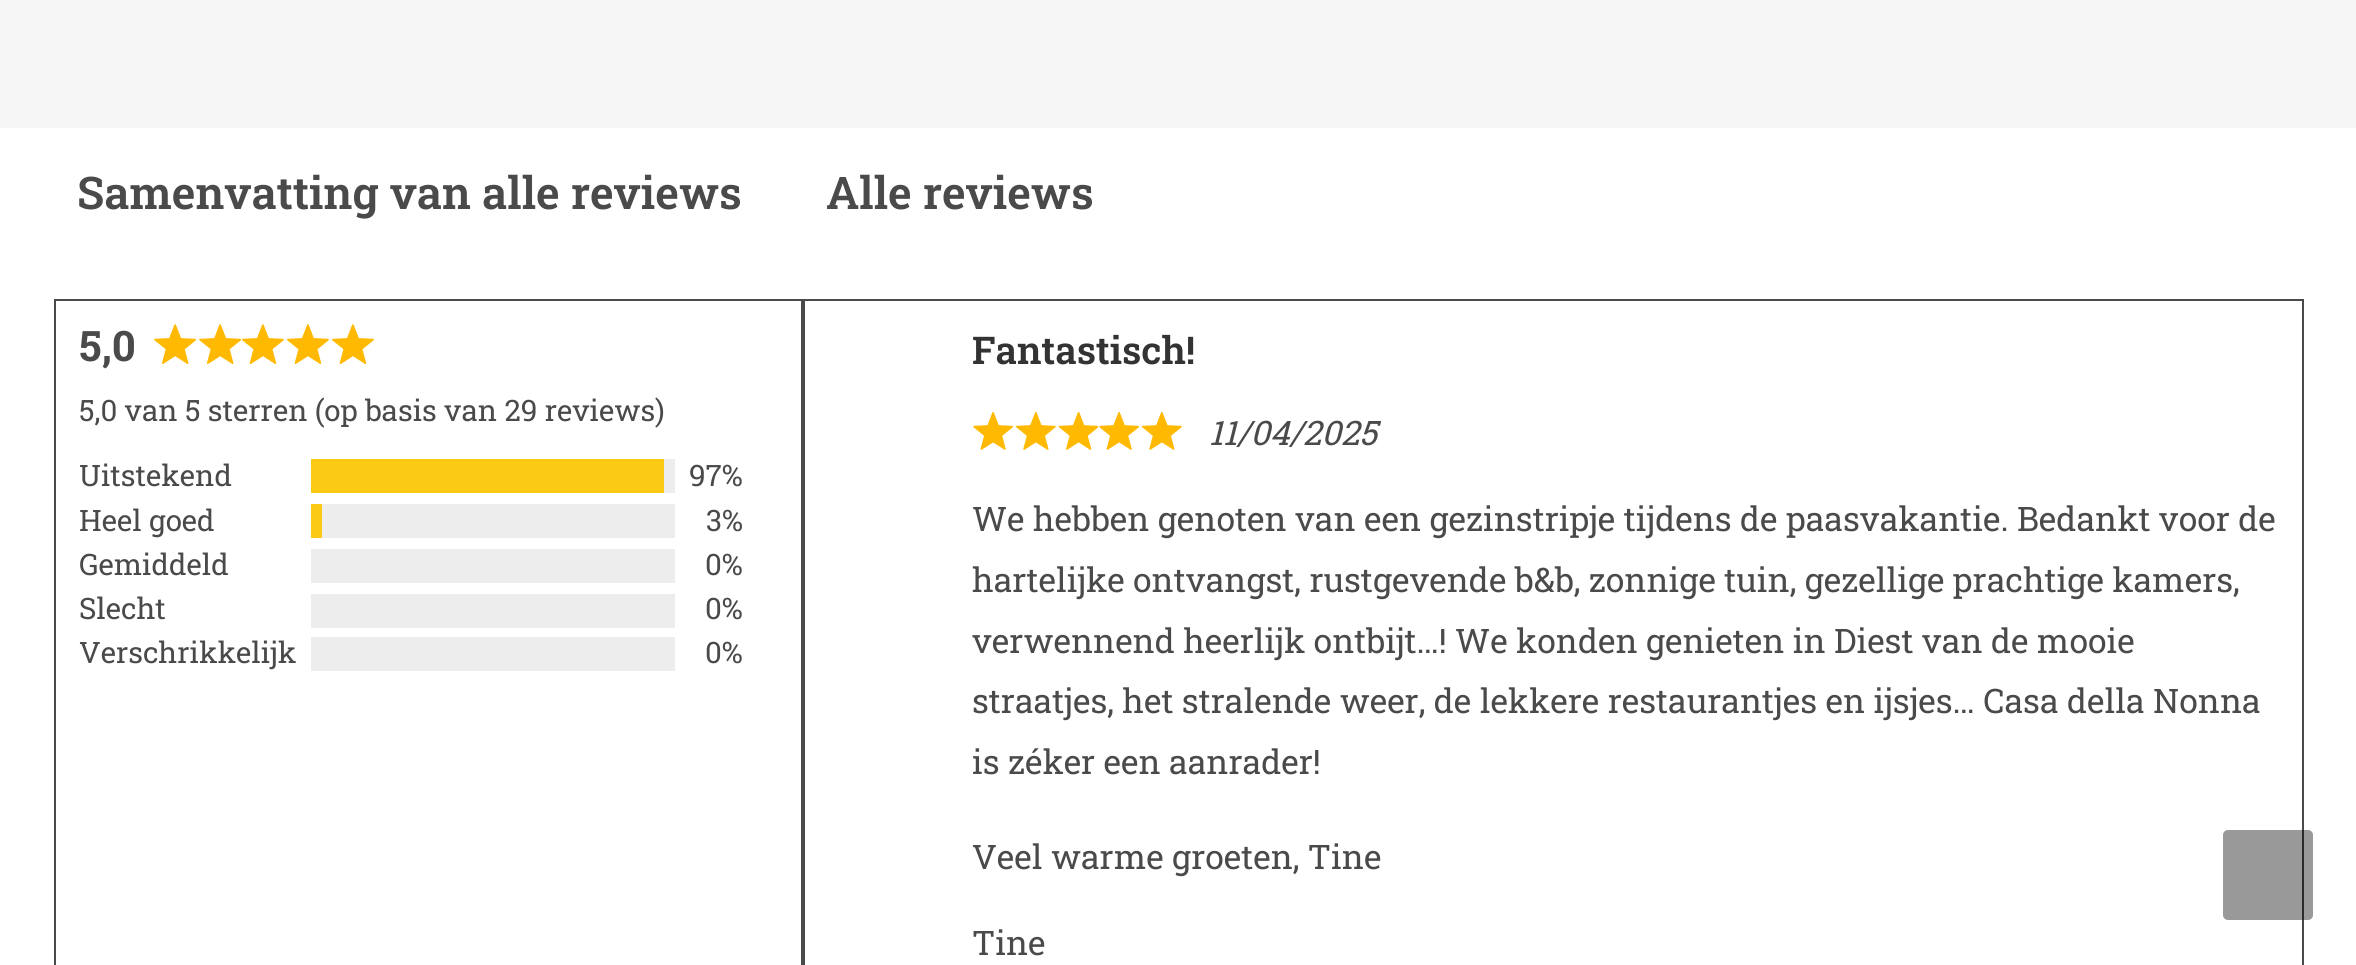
import math
import cairo

surface = cairo.ImageSurface(cairo.FORMAT_RGB24, 2356, 965)
ctx = cairo.Context(surface)
options = cairo.FontOptions()
options.set_hint_metrics(cairo.HINT_METRICS_OFF)
options.set_hint_style(cairo.HINT_STYLE_NONE)
ctx.set_font_options(options)
ctx.set_miter_limit(4)


def round_rect(x, y, w, h, r):
    ctx.new_sub_path()
    for i, (u, v) in enumerate([(x + w - r, y + h - r), (x + r, y + h - r), (x + r, y + r), (x + w - r, y + r)]):
        ctx.arc(u, v, r, i * math.pi / 2, (i + 1) * math.pi / 2)
    ctx.close_path()


def picture(path, x, y, w, h):
    ctx.save()
    ctx.set_source_surface(cairo.ImageSurface.create_from_png(path), x, y)
    ctx.rectangle(x, y, w, h)
    ctx.fill()
    ctx.restore()


ctx.set_source_rgb(1, 1, 1)
ctx.paint()
ctx.set_source_rgb(0.961, 0.961, 0.961)
ctx.rectangle(0, 0, 2356, 128)
ctx.fill()
ctx.select_font_face("Roboto Slab SemiBold")
ctx.set_font_size(45)
ctx.set_source_rgb(0.29, 0.29, 0.29)
ctx.move_to(77, 209)
ctx.show_text("Samenvatting van alle reviews")
ctx.move_to(826, 209)
ctx.show_text("Alle reviews")
ctx.rectangle(55, 300, 747, 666)
ctx.stroke()
ctx.select_font_face("Roboto Slab", cairo.FONT_SLANT_NORMAL, cairo.FONT_WEIGHT_BOLD)
ctx.set_font_size(42)
ctx.move_to(79, 361)
ctx.show_text("5,0")
picture("img1.png", 154, 324, 43, 40)
picture("img2.png", 199, 324, 42, 40)
picture("img3.png", 242, 324, 42, 40)
picture("img3.png", 287, 324, 42, 40)
picture("img3.png", 332, 324, 42, 40)
ctx.select_font_face("Roboto Slab")
ctx.set_font_size(29.5)
ctx.move_to(79, 421)
ctx.show_text("5,0 van 5 sterren (op basis van 29 reviews)")
ctx.move_to(79, 486)
ctx.show_text("Uitstekend")
ctx.set_source_rgb(0.98, 0.792, 0.082)
ctx.rectangle(311, 459, 353, 34)
ctx.fill()
ctx.set_source_rgb(0.929, 0.929, 0.929)
ctx.rectangle(664, 459, 11, 34)
ctx.fill()
ctx.set_source_rgb(0.29, 0.29, 0.29)
ctx.move_to(689, 486)
ctx.show_text("97%")
ctx.move_to(79, 531)
ctx.show_text("Heel goed")
ctx.set_source_rgb(0.98, 0.792, 0.082)
ctx.rectangle(311, 504, 11, 34)
ctx.fill()
ctx.set_source_rgb(0.929, 0.929, 0.929)
ctx.rectangle(322, 504, 353, 34)
ctx.fill()
ctx.set_source_rgb(0.29, 0.29, 0.29)
ctx.move_to(706, 531)
ctx.show_text("3%")
ctx.move_to(79, 575)
ctx.show_text("Gemiddeld")
ctx.set_source_rgb(0.929, 0.929, 0.929)
ctx.rectangle(311, 549, 364, 34)
ctx.fill()
ctx.set_source_rgb(0.29, 0.29, 0.29)
ctx.move_to(705, 575)
ctx.show_text("0%")
ctx.move_to(79, 619)
ctx.show_text("Slecht")
ctx.set_source_rgb(0.929, 0.929, 0.929)
ctx.rectangle(311, 594, 364, 34)
ctx.fill()
ctx.set_source_rgb(0.29, 0.29, 0.29)
ctx.move_to(705, 619)
ctx.show_text("0%")
ctx.move_to(79, 663)
ctx.show_text("Verschrikkelijk")
ctx.set_source_rgb(0.929, 0.929, 0.929)
ctx.rectangle(311, 637, 364, 34)
ctx.fill()
ctx.set_source_rgb(0.29, 0.29, 0.29)
ctx.move_to(705, 663)
ctx.show_text("0%")
ctx.rectangle(804, 300, 1499, 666)
ctx.stroke()
ctx.select_font_face("Roboto Slab SemiBold")
ctx.set_font_size(38.25)
ctx.set_source_rgb(0.2, 0.2, 0.2)
ctx.move_to(972, 364)
ctx.show_text("Fantastisch!")
picture("img4.png", 973, 412, 40, 38)
picture("img5.png", 1015, 412, 41, 38)
picture("img6.png", 1058, 412, 40, 38)
picture("img4.png", 1099, 412, 40, 38)
picture("img5.png", 1141, 412, 41, 38)
ctx.select_font_face("Roboto Slab", cairo.FONT_SLANT_ITALIC)
ctx.set_font_size(33.75)
ctx.set_source_rgb(0.29, 0.29, 0.29)
ctx.move_to(1209, 445)
ctx.show_text("11/04/2025")
ctx.select_font_face("Roboto Slab")
ctx.move_to(972, 531)
ctx.show_text("We hebben genoten van een gezinstripje tijdens de paasvakantie. Bedankt voor de")
ctx.move_to(972, 592)
ctx.show_text("hartelijke ontvangst, rustgevende b&b, zonnige tuin, gezellige prachtige kamers,")
ctx.move_to(972, 653)
ctx.show_text("verwennend heerlijk ontbijt…! We konden genieten in Diest van de mooie")
ctx.move_to(972, 713)
ctx.show_text("straatjes, het stralende weer, de lekkere restaurantjes en ijsjes… Casa della Nonna")
ctx.move_to(972, 774)
ctx.show_text("is zéker een aanrader!")
ctx.move_to(972, 869)
ctx.show_text("Veel warme groeten, Tine")
ctx.move_to(972, 955)
ctx.show_text("Tine")
ctx.set_source_rgba(0, 0, 0, 0.4)
round_rect(2223, 830, 90, 90, 5)
ctx.fill()
surface.write_to_png("page.png")
